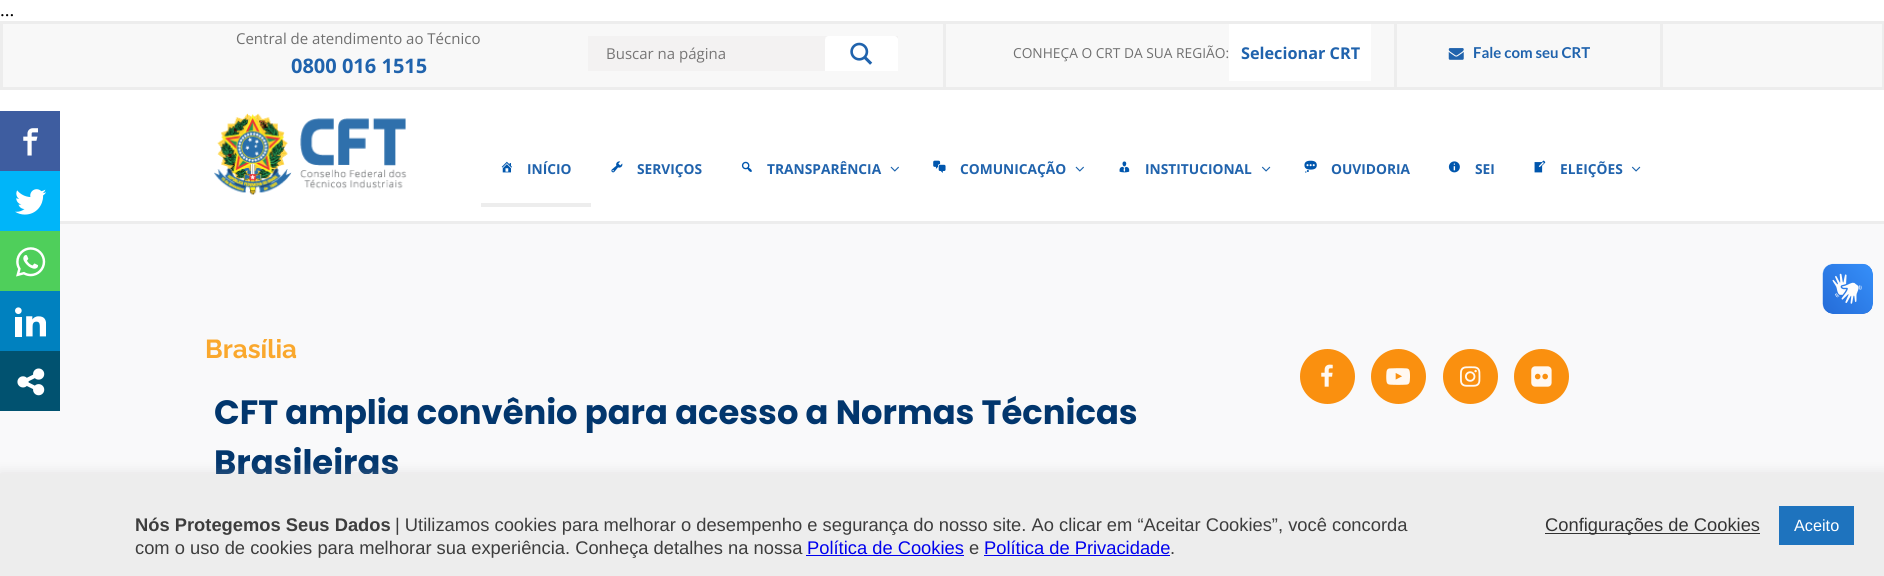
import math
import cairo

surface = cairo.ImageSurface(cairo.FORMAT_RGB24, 1884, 576)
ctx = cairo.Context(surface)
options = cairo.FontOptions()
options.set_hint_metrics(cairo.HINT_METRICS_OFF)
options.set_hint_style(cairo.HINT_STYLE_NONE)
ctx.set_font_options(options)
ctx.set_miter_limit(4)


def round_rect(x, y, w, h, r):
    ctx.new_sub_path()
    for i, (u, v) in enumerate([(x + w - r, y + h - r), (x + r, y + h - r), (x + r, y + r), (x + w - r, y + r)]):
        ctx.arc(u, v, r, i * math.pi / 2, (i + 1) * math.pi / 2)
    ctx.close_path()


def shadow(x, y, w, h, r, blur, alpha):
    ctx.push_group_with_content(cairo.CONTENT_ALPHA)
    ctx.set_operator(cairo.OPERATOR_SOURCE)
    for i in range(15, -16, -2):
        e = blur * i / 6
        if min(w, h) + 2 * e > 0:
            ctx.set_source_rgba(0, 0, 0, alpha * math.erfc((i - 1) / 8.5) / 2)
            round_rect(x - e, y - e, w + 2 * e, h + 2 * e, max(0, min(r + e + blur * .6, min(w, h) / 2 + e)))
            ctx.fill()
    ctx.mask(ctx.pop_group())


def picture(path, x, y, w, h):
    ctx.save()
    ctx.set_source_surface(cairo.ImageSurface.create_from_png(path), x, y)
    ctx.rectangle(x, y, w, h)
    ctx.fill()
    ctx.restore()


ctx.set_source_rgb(1, 1, 1)
ctx.paint()
ctx.select_font_face("Liberation Serif")
ctx.set_font_size(19)
ctx.set_source_rgb(0, 0, 0)
ctx.move_to(0, 16)
ctx.show_text("...")
ctx.set_source_rgb(0.243, 0.365, 0.627)
ctx.rectangle(0, 111, 60, 60)
ctx.fill()
picture("img1.png", 23, 128, 15, 28)
ctx.set_source_rgb(0.976, 0.976, 0.98)
ctx.rectangle(0, 224, 1884, 250)
ctx.fill()
ctx.set_source_rgb(0, 0.71, 0.976)
ctx.rectangle(0, 171, 60, 60)
ctx.fill()
picture("img2.png", 15, 189, 31, 26)
ctx.set_source_rgb(0.31, 0.812, 0.357)
ctx.rectangle(0, 231, 60, 60)
ctx.fill()
picture("img3.png", 16, 247, 30, 30)
ctx.set_source_rgb(0, 0.506, 0.749)
ctx.rectangle(0, 291, 60, 60)
ctx.fill()
picture("img4.png", 15, 307, 31, 30)
ctx.set_source_rgb(0.004, 0.322, 0.439)
ctx.rectangle(0, 351, 60, 60)
ctx.fill()
picture("img5.png", 17, 368, 28, 28)
ctx.set_source_rgb(0.969, 0.969, 0.969)
ctx.rectangle(1.5, 22.5, 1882, 66)
ctx.fill_preserve()
ctx.set_source_rgb(0.929, 0.929, 0.929)
ctx.set_line_width(3)
ctx.stroke()
ctx.select_font_face("Open Sans")
ctx.set_font_size(15)
ctx.set_source_rgb(0.439, 0.439, 0.439)
ctx.move_to(236, 44)
ctx.show_text("Central de atendimento ao Técnico")
ctx.select_font_face("Open Sans", cairo.FONT_SLANT_NORMAL, cairo.FONT_WEIGHT_BOLD)
ctx.set_font_size(20)
ctx.set_source_rgb(0.125, 0.388, 0.678)
ctx.move_to(291, 73)
ctx.show_text("0800 016 1515")
ctx.set_source_rgb(0.953, 0.949, 0.949)
ctx.rectangle(588, 36, 310, 35)
ctx.fill()
ctx.select_font_face("Open Sans")
ctx.set_font_size(15)
ctx.set_source_rgb(0.467, 0.463, 0.463)
ctx.move_to(606, 59)
ctx.show_text("Buscar na página")
ctx.set_source_rgb(1, 1, 1)
ctx.new_path()
ctx.move_to(829, 36)
ctx.line_to(894, 36)
ctx.curve_to(896, 36, 898, 38, 898, 40)
ctx.line_to(898, 71)
ctx.line_to(825, 71)
ctx.line_to(825, 40)
ctx.curve_to(825, 38, 827, 36, 829, 36)
ctx.close_path()
ctx.fill()
ctx.save()
ctx.rectangle(588, 36, 310, 35)
ctx.clip()
ctx.set_source_rgba(1, 1, 1, 0.64)
ctx.new_path()
ctx.move_to(828, 38)
ctx.line_to(892, 38)
ctx.curve_to(895, 38, 896, 39, 896, 41)
ctx.line_to(896, 81)
ctx.curve_to(896, 82, 896, 83, 895, 84)
ctx.curve_to(897, 83, 898, 82, 898, 80)
ctx.line_to(898, 40)
ctx.curve_to(898, 38, 896, 36, 894, 36)
ctx.line_to(829, 36)
ctx.curve_to(827, 36, 826, 37, 825, 38)
ctx.close_path()
ctx.fill()
ctx.restore()
picture("img6.png", 850, 42, 23, 23)
ctx.set_source_rgb(0.929, 0.929, 0.929)
ctx.rectangle(943, 24, 3, 64)
ctx.fill()
ctx.set_font_size(13.75)
ctx.set_source_rgb(0.439, 0.439, 0.439)
ctx.move_to(1013, 58)
ctx.show_text("CONHEÇA O CRT DA SUA REGIÃO:")
ctx.set_source_rgb(1, 1, 1)
ctx.rectangle(1229, 24, 142, 57)
ctx.fill()
ctx.select_font_face("Open Sans", cairo.FONT_SLANT_NORMAL, cairo.FONT_WEIGHT_BOLD)
ctx.set_font_size(16.25)
ctx.set_source_rgb(0.125, 0.388, 0.678)
ctx.move_to(1241, 59)
ctx.show_text("Selecionar CRT")
ctx.set_source_rgb(0.929, 0.929, 0.929)
ctx.rectangle(1394, 24, 3, 64)
ctx.fill()
picture("img7.png", 1448, 48, 16, 12)
ctx.select_font_face("Lato", cairo.FONT_SLANT_NORMAL, cairo.FONT_WEIGHT_BOLD)
ctx.set_font_size(15)
ctx.set_source_rgb(0.125, 0.388, 0.678)
ctx.move_to(1473, 58)
ctx.show_text("Fale com seu CRT")
ctx.set_source_rgb(0.929, 0.929, 0.929)
ctx.rectangle(1660, 24, 3, 64)
ctx.fill()
ctx.rectangle(60, 221, 1824, 3)
ctx.fill()
picture("img8.png", 214, 113, 193, 82)
picture("img9.png", 501, 161, 11, 12)
ctx.select_font_face("Open Sans", cairo.FONT_SLANT_NORMAL, cairo.FONT_WEIGHT_BOLD)
ctx.set_font_size(13.75)
ctx.set_source_rgb(0.125, 0.388, 0.678)
ctx.move_to(527, 174)
ctx.show_text("INÍCIO")
picture("img10.png", 611, 161, 12, 12)
ctx.move_to(637, 174)
ctx.show_text("SERVIÇOS")
picture("img11.png", 741, 161, 11, 11)
ctx.move_to(767, 174)
ctx.show_text("TRANSPARÊNCIA")
picture("img12.png", 890, 166, 9, 6)
picture("img13.png", 933, 160, 13, 13)
ctx.move_to(960, 174)
ctx.show_text("COMUNICAÇÃO")
picture("img12.png", 1075, 166, 9, 6)
picture("img14.png", 1119, 161, 11, 12)
ctx.move_to(1145, 174)
ctx.show_text("INSTITUCIONAL")
picture("img15.png", 1261, 166, 10, 6)
picture("img16.png", 1304, 160, 13, 13)
ctx.move_to(1331, 174)
ctx.show_text("OUVIDORIA")
picture("img17.png", 1448, 161, 12, 12)
ctx.move_to(1475, 174)
ctx.show_text("SEI")
picture("img18.png", 1534, 160, 12, 13)
ctx.move_to(1560, 174)
ctx.show_text("ELEIÇÕES")
picture("img15.png", 1631, 166, 10, 6)
ctx.set_source_rgb(0.929, 0.929, 0.929)
ctx.rectangle(481, 203, 110, 4)
ctx.fill()
picture("img19.png", 1822, 263, 51, 51)
picture("img20.png", 1823, 264, 50, 50)
ctx.select_font_face("Raleway", cairo.FONT_SLANT_NORMAL, cairo.FONT_WEIGHT_BOLD)
ctx.set_font_size(26)
ctx.set_source_rgb(0.98, 0.659, 0.176)
ctx.move_to(205, 358)
ctx.show_text("Brasília")
ctx.select_font_face("Poppins", cairo.FONT_SLANT_NORMAL, cairo.FONT_WEIGHT_BOLD)
ctx.set_font_size(33.75)
ctx.set_source_rgb(0.008, 0.212, 0.427)
ctx.move_to(214, 424)
ctx.show_text("CFT amplia convênio para acesso a Normas Técnicas")
ctx.move_to(214, 474)
ctx.show_text("Brasileiras")
ctx.set_source_rgb(0.98, 0.565, 0.059)
ctx.new_path()
ctx.arc(1327.5, 376.5, 27.5, 0, 2 * math.pi)
ctx.fill()
picture("img21.png", 1321, 364, 12, 23)
ctx.arc(1398.5, 376.5, 27.5, 0, 2 * math.pi)
ctx.fill()
picture("img22.png", 1386, 368, 24, 17)
ctx.arc(1470.5, 376.5, 27.5, 0, 2 * math.pi)
ctx.fill()
picture("img23.png", 1460, 366, 21, 21)
ctx.arc(1541.5, 376.5, 27.5, 0, 2 * math.pi)
ctx.fill()
picture("img24.png", 1531, 366, 21, 21)
ctx.set_source_rgb(0.675, 0.671, 0.671)
shadow(0, 473, 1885, 102, 0, 6, 0.3)
ctx.set_source_rgb(0.929, 0.929, 0.929)
ctx.rectangle(0, 474, 1884, 102)
ctx.fill()
ctx.select_font_face("Liberation Sans", cairo.FONT_SLANT_NORMAL, cairo.FONT_WEIGHT_BOLD)
ctx.set_font_size(18.33)
ctx.set_source_rgb(0.239, 0.239, 0.239)
ctx.move_to(135, 531)
ctx.show_text("Nós Protegemos Seus Dados")
ctx.select_font_face("Liberation Sans")
ctx.move_to(395, 531)
ctx.show_text("| Utilizamos cookies para melhorar o desempenho e segurança do nosso site. Ao clicar em “Aceitar Cookies”, você concorda")
ctx.move_to(135, 554)
ctx.show_text("com o uso de cookies para melhorar sua experiência. Conheça detalhes na nossa")
ctx.set_source_rgb(0, 0, 0.933)
ctx.move_to(807, 554)
ctx.show_text("Política de Cookies")
ctx.rectangle(806, 555, 158, 1)
ctx.fill()
ctx.set_source_rgb(0.239, 0.239, 0.239)
ctx.move_to(969, 554)
ctx.show_text("e")
ctx.set_source_rgb(0, 0, 0.933)
ctx.move_to(984, 554)
ctx.show_text("Política de Privacidade")
ctx.rectangle(984, 555, 186, 1)
ctx.fill()
ctx.set_source_rgb(0.239, 0.239, 0.239)
ctx.move_to(1170, 554)
ctx.show_text(".")
ctx.set_source_rgb(0.2, 0.2, 0.2)
ctx.rectangle(1545, 533, 215, 1)
ctx.fill()
ctx.move_to(1545, 531)
ctx.show_text("Configurações de Cookies")
ctx.set_source_rgb(0.118, 0.451, 0.745)
ctx.rectangle(1779, 506, 75, 39)
ctx.fill()
ctx.set_font_size(16.25)
ctx.set_source_rgb(1, 1, 1)
ctx.move_to(1794, 531)
ctx.show_text("Aceito")
surface.write_to_png("page.png")
